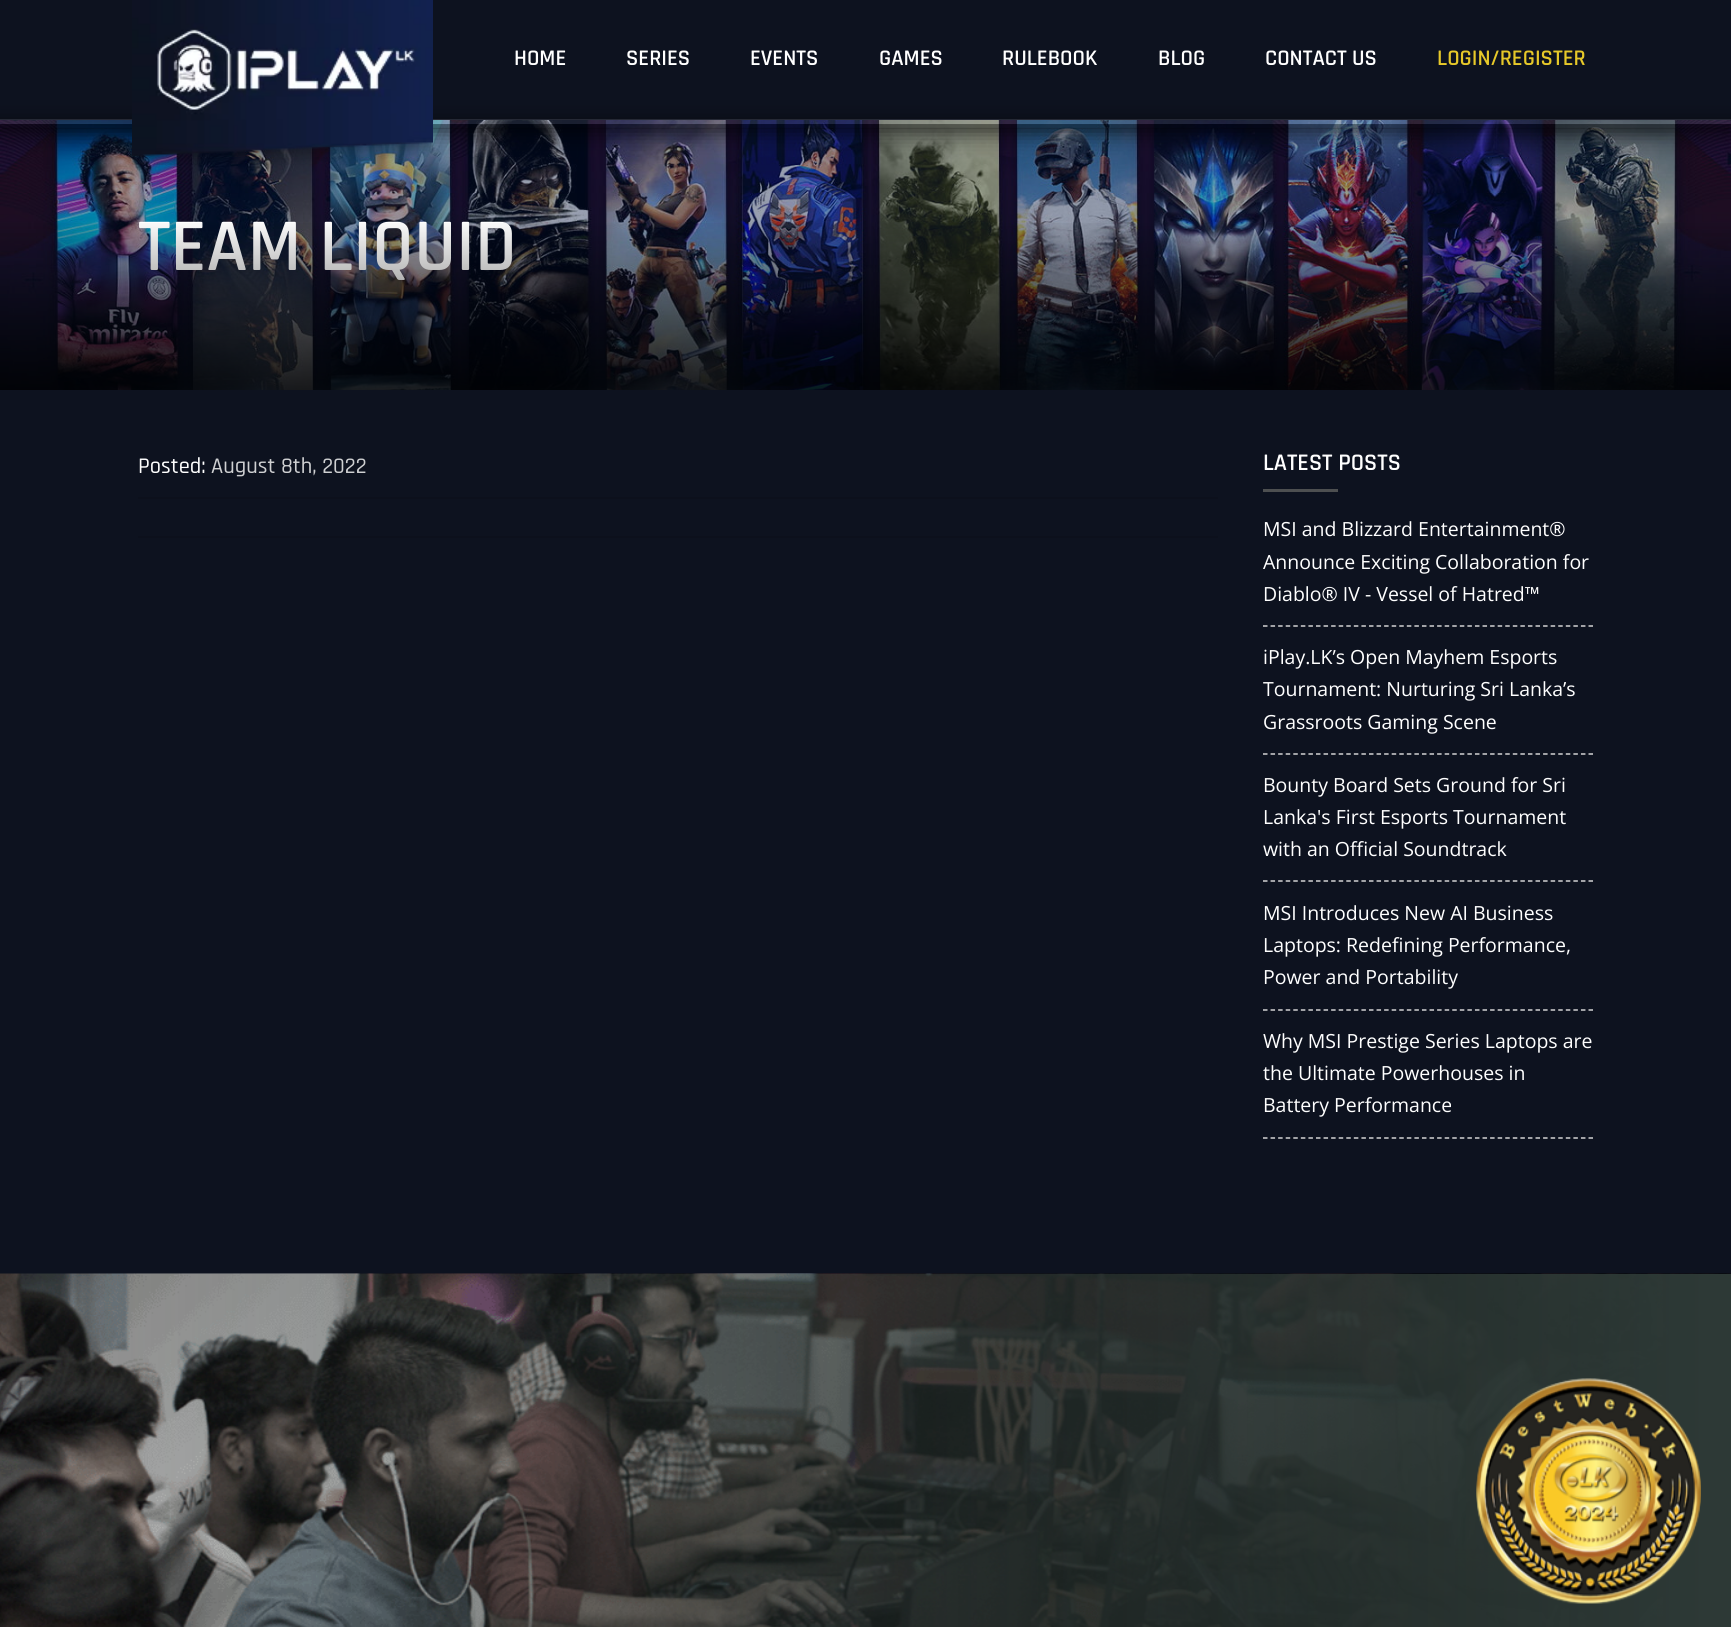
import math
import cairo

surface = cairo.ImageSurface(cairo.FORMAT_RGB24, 1731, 1627)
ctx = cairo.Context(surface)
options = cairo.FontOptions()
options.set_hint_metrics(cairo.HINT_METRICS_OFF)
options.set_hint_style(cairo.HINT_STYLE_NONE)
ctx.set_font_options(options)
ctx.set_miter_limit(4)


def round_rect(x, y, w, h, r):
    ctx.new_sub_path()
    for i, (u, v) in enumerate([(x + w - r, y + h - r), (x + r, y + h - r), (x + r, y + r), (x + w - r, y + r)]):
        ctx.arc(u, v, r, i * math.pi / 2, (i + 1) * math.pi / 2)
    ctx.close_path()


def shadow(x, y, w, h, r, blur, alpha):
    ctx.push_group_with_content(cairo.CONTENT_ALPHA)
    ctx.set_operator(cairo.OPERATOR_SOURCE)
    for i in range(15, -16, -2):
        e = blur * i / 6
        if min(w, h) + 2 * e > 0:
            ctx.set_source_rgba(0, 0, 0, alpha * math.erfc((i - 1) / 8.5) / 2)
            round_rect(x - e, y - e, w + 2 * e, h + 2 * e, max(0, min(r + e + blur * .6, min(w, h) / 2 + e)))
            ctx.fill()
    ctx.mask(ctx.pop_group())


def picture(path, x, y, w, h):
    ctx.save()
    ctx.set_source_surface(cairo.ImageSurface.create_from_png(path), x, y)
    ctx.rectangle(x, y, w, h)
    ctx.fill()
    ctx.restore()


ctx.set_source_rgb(1, 1, 1)
ctx.paint()
ctx.set_source_rgb(0.051, 0.071, 0.122)
ctx.rectangle(0, 0, 1731, 120)
ctx.fill()
picture("img2.png", 0, 120, 1731, 270)
ctx.save()
ctx.set_fill_rule(cairo.FILL_RULE_EVEN_ODD)
ctx.new_path()
ctx.move_to(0, 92)
ctx.line_to(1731, 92)
ctx.line_to(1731, 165)
ctx.line_to(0, 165)
ctx.close_path()
ctx.move_to(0, 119)
ctx.line_to(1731, 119)
ctx.line_to(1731, 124)
ctx.line_to(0, 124)
ctx.close_path()
ctx.clip()
ctx.set_source_rgb(0, 0, 0)
shadow(0, 126, 1731, 5, 0, 11, 0.75)
ctx.restore()
ctx.set_source_rgba(1, 1, 1, 0.1)
ctx.rectangle(0, 119, 1731, 5)
ctx.fill()
picture("img1.png", 132, 0, 301, 165)
ctx.select_font_face("Rajdhani SemiBold")
ctx.set_font_size(22.5)
ctx.set_source_rgb(1, 1, 1)
ctx.move_to(514, 65)
ctx.show_text("HOME")
ctx.move_to(626, 65)
ctx.show_text("SERIES")
ctx.move_to(750, 65)
ctx.show_text("EVENTS")
ctx.move_to(879, 65)
ctx.show_text("GAMES")
ctx.move_to(1002, 65)
ctx.show_text("RULEBOOK")
ctx.move_to(1158, 65)
ctx.show_text("BLOG")
ctx.move_to(1265, 65)
ctx.show_text("CONTACT US")
ctx.set_source_rgb(0.902, 0.784, 0.161)
ctx.move_to(1437, 65)
ctx.show_text("LOGIN/REGISTER")
ctx.set_font_size(75)
ctx.set_source_rgb(1, 1, 1)
ctx.move_to(138, 270)
ctx.show_text("TEAM LIQUID")
gradient = cairo.LinearGradient(866, 390, 866, 218)
gradient.add_color_stop_rgba(0, 0, 0, 0, 0.82)
gradient.add_color_stop_rgba(1, 0, 0, 0, 0)
ctx.set_source(gradient)
ctx.rectangle(0, 223, 1731, 167)
ctx.fill()
ctx.set_source_rgb(0.051, 0.071, 0.122)
ctx.rectangle(0, 390, 1731, 884)
ctx.fill()
ctx.set_source_rgb(0.047, 0.063, 0.11)
ctx.rectangle(138, 497, 1080, 2)
ctx.fill()
ctx.select_font_face("Rajdhani Medium")
ctx.set_font_size(22.5)
ctx.set_source_rgb(1, 1, 1)
ctx.move_to(138, 473)
ctx.show_text("Posted:")
ctx.set_source_rgb(0.812, 0.816, 0.824)
ctx.move_to(211, 473)
ctx.show_text("August 8th, 2022")
ctx.set_source_rgb(0.047, 0.063, 0.11)
ctx.rectangle(138, 536, 1080, 2)
ctx.fill()
ctx.select_font_face("Rajdhani SemiBold")
ctx.set_font_size(24)
ctx.set_source_rgb(1, 1, 1)
ctx.move_to(1263, 470)
ctx.show_text("LATEST POSTS")
ctx.set_source_rgb(0.302, 0.31, 0.314)
ctx.rectangle(1263, 489, 75, 3)
ctx.fill()
ctx.new_path()
ctx.move_to(1263, 626)
ctx.line_to(1593, 626)
ctx.set_source_rgb(0.827, 0.827, 0.827)
ctx.set_line_width(1.5)
ctx.set_dash([4.5, 3.07])
ctx.stroke()
ctx.select_font_face("Open Sans")
ctx.set_font_size(19.5)
ctx.set_source_rgb(1, 1, 1)
ctx.move_to(1263, 536)
ctx.show_text("MSI and Blizzard Entertainment®")
ctx.move_to(1263, 569)
ctx.show_text("Announce Exciting Collaboration for")
ctx.move_to(1263, 601)
ctx.show_text("Diablo® IV - Vessel of Hatred™")
ctx.new_path()
ctx.move_to(1263, 754)
ctx.line_to(1593, 754)
ctx.set_source_rgb(0.827, 0.827, 0.827)
ctx.stroke()
ctx.set_source_rgb(1, 1, 1)
ctx.move_to(1263, 664)
ctx.show_text("iPlay.LK’s Open Mayhem Esports")
ctx.move_to(1263, 696)
ctx.show_text("Tournament: Nurturing Sri Lanka’s")
ctx.move_to(1263, 729)
ctx.show_text("Grassroots Gaming Scene")
ctx.new_path()
ctx.move_to(1263, 881)
ctx.line_to(1593, 881)
ctx.set_source_rgb(0.827, 0.827, 0.827)
ctx.stroke()
ctx.set_source_rgb(1, 1, 1)
ctx.move_to(1263, 792)
ctx.show_text("Bounty Board Sets Ground for Sri")
ctx.move_to(1263, 824)
ctx.show_text("Lanka's First Esports Tournament")
ctx.move_to(1263, 856)
ctx.show_text("with an Official Soundtrack")
ctx.new_path()
ctx.move_to(1263, 1010)
ctx.line_to(1593, 1010)
ctx.set_source_rgb(0.827, 0.827, 0.827)
ctx.stroke()
ctx.set_source_rgb(1, 1, 1)
ctx.move_to(1263, 920)
ctx.show_text("MSI Introduces New AI Business")
ctx.move_to(1263, 952)
ctx.show_text("Laptops: Redefining Performance,")
ctx.move_to(1263, 984)
ctx.show_text("Power and Portability")
ctx.new_path()
ctx.move_to(1263, 1138)
ctx.line_to(1593, 1138)
ctx.set_source_rgb(0.827, 0.827, 0.827)
ctx.stroke()
ctx.set_source_rgb(1, 1, 1)
ctx.move_to(1263, 1048)
ctx.show_text("Why MSI Prestige Series Laptops are")
ctx.move_to(1263, 1080)
ctx.show_text("the Ultimate Powerhouses in")
ctx.move_to(1263, 1112)
ctx.show_text("Battery Performance")
picture("img3.png", 0, 1273, 1731, 354)
picture("img4.png", 1476, 1378, 225, 226)
surface.write_to_png("page.png")
